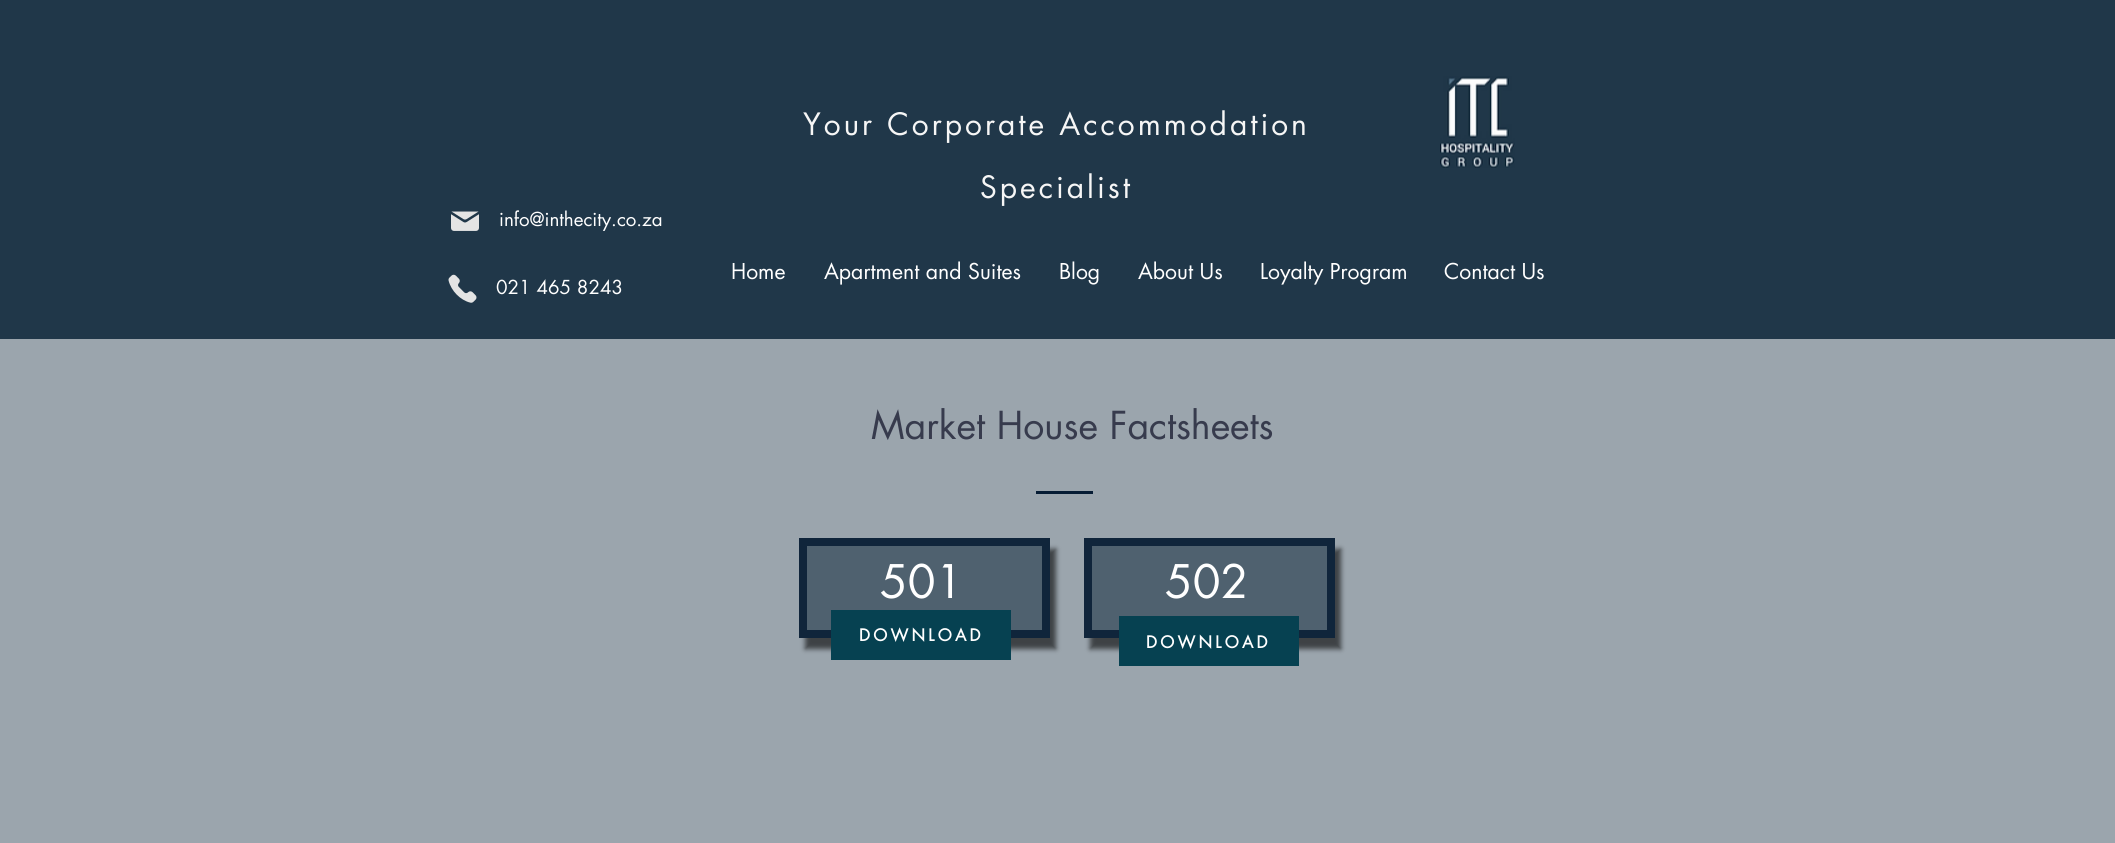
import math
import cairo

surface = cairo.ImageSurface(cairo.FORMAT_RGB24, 2115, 843)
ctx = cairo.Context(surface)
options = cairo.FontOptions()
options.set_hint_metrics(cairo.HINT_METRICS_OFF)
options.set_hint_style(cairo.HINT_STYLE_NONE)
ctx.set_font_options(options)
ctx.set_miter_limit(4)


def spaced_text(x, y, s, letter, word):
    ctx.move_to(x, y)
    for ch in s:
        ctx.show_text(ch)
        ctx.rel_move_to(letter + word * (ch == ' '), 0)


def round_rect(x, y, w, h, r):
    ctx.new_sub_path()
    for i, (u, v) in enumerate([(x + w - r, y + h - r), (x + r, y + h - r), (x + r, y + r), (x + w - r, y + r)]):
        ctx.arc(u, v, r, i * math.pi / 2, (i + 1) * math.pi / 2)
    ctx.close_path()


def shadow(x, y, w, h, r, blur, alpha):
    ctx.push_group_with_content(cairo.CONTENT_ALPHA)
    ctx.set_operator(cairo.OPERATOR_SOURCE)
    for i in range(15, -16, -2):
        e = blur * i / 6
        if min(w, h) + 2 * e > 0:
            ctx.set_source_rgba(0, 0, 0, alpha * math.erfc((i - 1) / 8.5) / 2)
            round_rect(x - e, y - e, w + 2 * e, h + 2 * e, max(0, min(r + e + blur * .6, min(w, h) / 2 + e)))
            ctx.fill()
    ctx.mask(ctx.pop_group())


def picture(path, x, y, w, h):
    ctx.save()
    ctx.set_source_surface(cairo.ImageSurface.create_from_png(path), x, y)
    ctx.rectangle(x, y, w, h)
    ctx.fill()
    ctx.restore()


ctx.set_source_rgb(0.125, 0.216, 0.286)
ctx.paint()
ctx.select_font_face("futura")
ctx.set_font_size(30)
ctx.set_source_rgb(0.961, 0.961, 0.961)
spaced_text(803, 135, "Your Corporate Accommodation", 3, 0)
spaced_text(980, 198, "Specialist", 3, 0)
picture("img1.png", 1440, 76, 75, 92)
picture("img2.png", 451, 211, 28, 20)
ctx.set_font_size(18.75)
ctx.set_source_rgb(1, 1, 1)
ctx.move_to(499, 226)
ctx.show_text("info@inthecity.co.za")
ctx.set_font_size(21.25)
ctx.move_to(731, 279)
ctx.show_text("Home")
ctx.move_to(824, 279)
ctx.show_text("Apartment and Suites")
ctx.move_to(1059, 279)
ctx.show_text("Blog")
ctx.move_to(1138, 279)
ctx.show_text("About Us")
ctx.move_to(1260, 279)
ctx.show_text("Loyalty Program")
ctx.move_to(1444, 279)
ctx.show_text("Contact Us")
picture("img3.png", 448, 274, 29, 29)
ctx.set_font_size(18.75)
ctx.move_to(496, 294)
ctx.show_text("021 465 8243")
ctx.set_source_rgb(0.608, 0.647, 0.678)
ctx.rectangle(0, 339, 2115, 504)
ctx.fill()
ctx.set_font_size(37.5)
ctx.set_source_rgb(0.216, 0.231, 0.302)
ctx.move_to(871, 439)
ctx.show_text("Market House Factsheets")
ctx.set_source_rgb(0.027, 0.11, 0.204)
ctx.rectangle(1036, 491, 57, 3)
ctx.fill()
ctx.save()
ctx.set_fill_rule(cairo.FILL_RULE_EVEN_ODD)
ctx.new_path()
ctx.move_to(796, 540)
ctx.line_to(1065, 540)
ctx.line_to(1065, 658)
ctx.line_to(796, 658)
ctx.close_path()
ctx.move_to(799, 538)
ctx.line_to(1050, 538)
ctx.line_to(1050, 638)
ctx.line_to(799, 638)
ctx.close_path()
ctx.clip()
ctx.set_source_rgb(0, 0, 0)
shadow(805, 549, 251, 100, 0, 2.5, 0.6)
ctx.restore()
ctx.set_source_rgba(0.125, 0.216, 0.286, 0.61)
ctx.rectangle(799, 538, 251, 100)
ctx.fill()
ctx.rectangle(803, 542, 243, 92)
ctx.set_source_rgba(0.027, 0.11, 0.204, 0.87)
ctx.set_line_width(8)
ctx.stroke()
ctx.set_font_size(45)
ctx.set_source_rgb(1, 1, 1)
ctx.move_to(880, 598)
ctx.show_text("501")
ctx.save()
ctx.set_fill_rule(cairo.FILL_RULE_EVEN_ODD)
ctx.new_path()
ctx.move_to(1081, 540)
ctx.line_to(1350, 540)
ctx.line_to(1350, 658)
ctx.line_to(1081, 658)
ctx.close_path()
ctx.move_to(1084, 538)
ctx.line_to(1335, 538)
ctx.line_to(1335, 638)
ctx.line_to(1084, 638)
ctx.close_path()
ctx.clip()
ctx.set_source_rgb(0, 0, 0)
shadow(1090, 549, 251, 100, 0, 2.5, 0.6)
ctx.restore()
ctx.set_source_rgba(0.125, 0.216, 0.286, 0.61)
ctx.rectangle(1084, 538, 251, 100)
ctx.fill()
ctx.rectangle(1088, 542, 243, 92)
ctx.set_source_rgba(0.027, 0.11, 0.204, 0.87)
ctx.stroke()
ctx.set_source_rgb(1, 1, 1)
ctx.move_to(1165, 598)
ctx.show_text("502")
ctx.set_source_rgb(0.027, 0.255, 0.318)
ctx.rectangle(831, 610, 180, 50)
ctx.fill()
ctx.select_font_face("futura", cairo.FONT_SLANT_NORMAL, cairo.FONT_WEIGHT_BOLD)
ctx.set_font_size(16.25)
ctx.set_source_rgb(1, 1, 1)
spaced_text(859, 641, "DOWNLOAD", 3.25, 0)
ctx.set_source_rgb(0.027, 0.255, 0.318)
ctx.rectangle(1119, 616, 180, 50)
ctx.fill()
ctx.set_source_rgb(1, 1, 1)
spaced_text(1146, 648, "DOWNLOAD", 3.25, 0)
surface.write_to_png("page.png")
